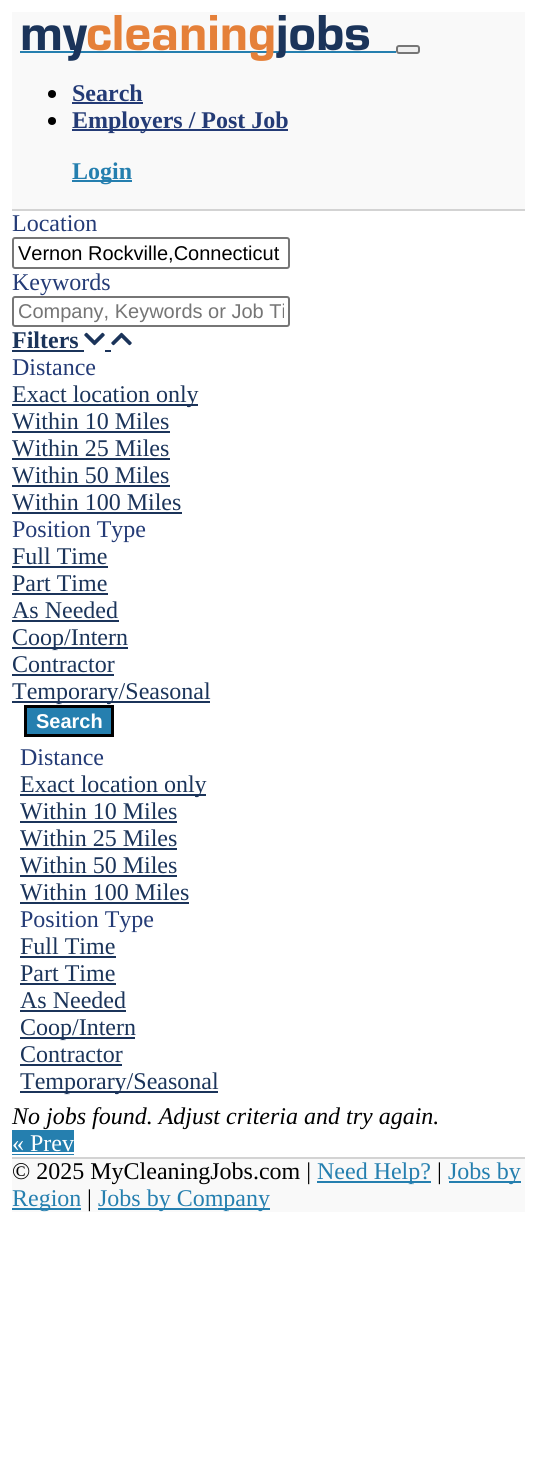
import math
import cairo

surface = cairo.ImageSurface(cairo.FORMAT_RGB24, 537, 1468)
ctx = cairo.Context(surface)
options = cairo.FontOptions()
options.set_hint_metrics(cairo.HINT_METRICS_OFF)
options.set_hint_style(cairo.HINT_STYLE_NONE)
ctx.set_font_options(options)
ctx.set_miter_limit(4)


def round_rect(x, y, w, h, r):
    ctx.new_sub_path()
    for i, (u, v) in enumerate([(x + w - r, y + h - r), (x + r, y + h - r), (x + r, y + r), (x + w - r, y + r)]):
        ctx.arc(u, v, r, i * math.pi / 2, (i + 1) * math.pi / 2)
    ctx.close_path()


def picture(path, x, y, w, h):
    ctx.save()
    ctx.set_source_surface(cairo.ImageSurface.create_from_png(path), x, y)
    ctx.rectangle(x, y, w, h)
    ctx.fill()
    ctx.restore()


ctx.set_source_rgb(1, 1, 1)
ctx.paint()
ctx.set_source_rgb(0.976, 0.976, 0.976)
ctx.rectangle(12, 12, 513, 197)
ctx.fill()
ctx.set_source_rgb(0.827, 0.827, 0.827)
ctx.rectangle(12, 209, 513, 2)
ctx.fill()
ctx.set_source_rgb(0.145, 0.498, 0.686)
ctx.rectangle(20, 51, 376, 2)
ctx.fill()
ctx.select_font_face("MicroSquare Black")
ctx.set_font_size(52.5)
ctx.set_source_rgb(0.106, 0.204, 0.353)
ctx.move_to(20, 50)
ctx.show_text("my")
ctx.set_source_rgb(0.898, 0.502, 0.224)
ctx.move_to(86, 50)
ctx.show_text("cleaning")
ctx.set_source_rgb(0.106, 0.204, 0.353)
ctx.move_to(276, 50)
ctx.show_text("jobs")
ctx.set_source_rgb(0.937, 0.937, 0.937)
round_rect(397, 46, 22, 7, 2)
ctx.fill_preserve()
ctx.set_source_rgb(0.463, 0.463, 0.463)
ctx.stroke()
ctx.set_source_rgb(0, 0, 0)
ctx.arc(52, 94, 4, 0, 2 * math.pi)
ctx.fill()
ctx.select_font_face("Liberation Serif", cairo.FONT_SLANT_NORMAL, cairo.FONT_WEIGHT_BOLD)
ctx.set_font_size(24)
ctx.set_source_rgb(0.141, 0.231, 0.463)
ctx.move_to(72, 101)
ctx.show_text("Search")
ctx.rectangle(72, 102, 71, 2)
ctx.fill()
ctx.set_source_rgb(0, 0, 0)
ctx.arc(52, 121, 4, 0, 2 * math.pi)
ctx.fill()
ctx.set_source_rgb(0.141, 0.231, 0.463)
ctx.rectangle(72, 129, 216, 2)
ctx.fill()
ctx.move_to(72, 128)
ctx.show_text("Employers / Post Job")
ctx.set_source_rgb(0.145, 0.498, 0.686)
ctx.rectangle(72, 180, 60, 2)
ctx.fill()
ctx.move_to(72, 179)
ctx.show_text("Login")
ctx.select_font_face("Liberation Serif")
ctx.set_source_rgb(0.141, 0.231, 0.463)
ctx.move_to(12, 231)
ctx.show_text("Location")
round_rect(13, 238, 276, 30, 2)
ctx.set_source_rgb(0.463, 0.463, 0.463)
ctx.stroke()
ctx.select_font_face("Liberation Sans")
ctx.set_font_size(20)
ctx.set_source_rgb(0, 0, 0)
ctx.move_to(18, 260)
ctx.show_text("Vernon Rockville,Connecticut")
ctx.select_font_face("Liberation Serif")
ctx.set_font_size(24)
ctx.set_source_rgb(0.141, 0.231, 0.463)
ctx.move_to(12, 290)
ctx.show_text("Keywords")
round_rect(13, 297, 276, 29, 2)
ctx.set_source_rgb(0.463, 0.463, 0.463)
ctx.stroke()
ctx.save()
ctx.rectangle(18, 300, 266, 23)
ctx.clip()
ctx.select_font_face("Liberation Sans")
ctx.set_font_size(20)
ctx.set_source_rgb(0.459, 0.459, 0.459)
ctx.move_to(18, 318)
ctx.show_text("Company, Keywords or Job Ti")
ctx.restore()
ctx.select_font_face("Liberation Serif", cairo.FONT_SLANT_NORMAL, cairo.FONT_WEIGHT_BOLD)
ctx.set_source_rgb(0.106, 0.204, 0.353)
ctx.move_to(12, 348)
ctx.show_text("Filters")
ctx.rectangle(12, 350, 72, 2)
ctx.fill()
picture("img1.png", 84, 332, 21, 14)
picture("img2.png", 111, 332, 21, 14)
ctx.rectangle(105, 350, 6, 2)
ctx.fill()
ctx.select_font_face("Liberation Serif")
ctx.set_source_rgb(0.141, 0.231, 0.463)
ctx.move_to(12, 375)
ctx.show_text("Distance")
ctx.set_source_rgb(0.106, 0.204, 0.353)
ctx.rectangle(12, 404, 186, 2)
ctx.fill()
ctx.move_to(12, 402)
ctx.show_text("Exact location only")
ctx.move_to(12, 429)
ctx.show_text("Within 10 Miles")
ctx.rectangle(12, 431, 158, 2)
ctx.fill()
ctx.move_to(12, 456)
ctx.show_text("Within 25 Miles")
ctx.rectangle(12, 458, 158, 2)
ctx.fill()
ctx.move_to(12, 483)
ctx.show_text("Within 50 Miles")
ctx.rectangle(12, 485, 158, 2)
ctx.fill()
ctx.move_to(12, 510)
ctx.show_text("Within 100 Miles")
ctx.rectangle(12, 512, 170, 2)
ctx.fill()
ctx.set_source_rgb(0.141, 0.231, 0.463)
ctx.move_to(12, 537)
ctx.show_text("Position Type")
ctx.set_source_rgb(0.106, 0.204, 0.353)
ctx.move_to(12, 564)
ctx.show_text("Full Time")
ctx.rectangle(12, 566, 96, 2)
ctx.fill()
ctx.move_to(12, 591)
ctx.show_text("Part Time")
ctx.rectangle(12, 593, 96, 2)
ctx.fill()
ctx.move_to(12, 618)
ctx.show_text("As Needed")
ctx.rectangle(12, 620, 107, 2)
ctx.fill()
ctx.rectangle(12, 647, 116, 2)
ctx.fill()
ctx.move_to(12, 645)
ctx.show_text("Coop/Intern")
ctx.move_to(12, 672)
ctx.show_text("Contractor")
ctx.rectangle(12, 674, 102, 2)
ctx.fill()
ctx.rectangle(12, 701, 198, 2)
ctx.fill()
ctx.move_to(12, 699)
ctx.show_text("Temporary/Seasonal")
ctx.set_source_rgb(0.145, 0.498, 0.686)
ctx.rectangle(25.5, 706.5, 87, 29)
ctx.fill_preserve()
ctx.set_source_rgb(0, 0, 0)
ctx.set_line_width(3)
ctx.stroke()
ctx.select_font_face("Liberation Sans", cairo.FONT_SLANT_NORMAL, cairo.FONT_WEIGHT_BOLD)
ctx.set_font_size(20)
ctx.set_source_rgb(1, 1, 1)
ctx.move_to(36, 728)
ctx.show_text("Search")
ctx.select_font_face("Liberation Serif")
ctx.set_font_size(24)
ctx.set_source_rgb(0.141, 0.231, 0.463)
ctx.move_to(20, 765)
ctx.show_text("Distance")
ctx.set_source_rgb(0.106, 0.204, 0.353)
ctx.rectangle(20, 794, 186, 2)
ctx.fill()
ctx.move_to(20, 792)
ctx.show_text("Exact location only")
ctx.move_to(20, 819)
ctx.show_text("Within 10 Miles")
ctx.rectangle(20, 821, 157, 2)
ctx.fill()
ctx.move_to(20, 846)
ctx.show_text("Within 25 Miles")
ctx.rectangle(20, 848, 157, 2)
ctx.fill()
ctx.move_to(20, 873)
ctx.show_text("Within 50 Miles")
ctx.rectangle(20, 875, 157, 2)
ctx.fill()
ctx.move_to(20, 900)
ctx.show_text("Within 100 Miles")
ctx.rectangle(20, 902, 169, 2)
ctx.fill()
ctx.set_source_rgb(0.141, 0.231, 0.463)
ctx.move_to(20, 927)
ctx.show_text("Position Type")
ctx.set_source_rgb(0.106, 0.204, 0.353)
ctx.move_to(20, 954)
ctx.show_text("Full Time")
ctx.rectangle(20, 956, 96, 2)
ctx.fill()
ctx.move_to(20, 981)
ctx.show_text("Part Time")
ctx.rectangle(20, 983, 96, 2)
ctx.fill()
ctx.move_to(20, 1008)
ctx.show_text("As Needed")
ctx.rectangle(20, 1010, 106, 2)
ctx.fill()
ctx.rectangle(20, 1037, 115, 2)
ctx.fill()
ctx.move_to(20, 1035)
ctx.show_text("Coop/Intern")
ctx.move_to(20, 1062)
ctx.show_text("Contractor")
ctx.rectangle(20, 1064, 102, 2)
ctx.fill()
ctx.rectangle(20, 1091, 198, 2)
ctx.fill()
ctx.move_to(20, 1089)
ctx.show_text("Temporary/Seasonal")
ctx.select_font_face("Liberation Serif", cairo.FONT_SLANT_ITALIC)
ctx.set_source_rgb(0, 0, 0)
ctx.move_to(12, 1124)
ctx.show_text("No jobs found. Adjust criteria and try again.")
ctx.set_source_rgb(0.145, 0.498, 0.686)
ctx.rectangle(12, 1130, 62, 25)
ctx.fill()
ctx.select_font_face("Liberation Serif")
ctx.set_source_rgb(1, 1, 1)
ctx.move_to(12, 1151)
ctx.show_text("« Prev")
ctx.rectangle(12, 1152, 62, 2)
ctx.fill()
ctx.set_source_rgb(0.976, 0.976, 0.976)
ctx.rectangle(12, 1159, 513, 53)
ctx.fill()
ctx.set_source_rgb(0.827, 0.827, 0.827)
ctx.rectangle(12, 1157, 513, 2)
ctx.fill()
ctx.set_source_rgb(0, 0, 0)
ctx.move_to(12, 1179)
ctx.show_text("© 2025 MyCleaningJobs.com |")
ctx.set_source_rgb(0.145, 0.498, 0.686)
ctx.rectangle(317, 1181, 114, 2)
ctx.fill()
ctx.move_to(317, 1179)
ctx.show_text("Need Help?")
ctx.set_source_rgb(0, 0, 0)
ctx.move_to(437, 1179)
ctx.show_text("|")
ctx.set_source_rgb(0.145, 0.498, 0.686)
ctx.rectangle(449, 1181, 72, 2)
ctx.fill()
ctx.move_to(448, 1179)
ctx.show_text("Jobs by")
ctx.rectangle(12, 1208, 69, 2)
ctx.fill()
ctx.move_to(12, 1206)
ctx.show_text("Region")
ctx.set_source_rgb(0, 0, 0)
ctx.move_to(87, 1206)
ctx.show_text("|")
ctx.set_source_rgb(0.145, 0.498, 0.686)
ctx.rectangle(98, 1208, 172, 2)
ctx.fill()
ctx.move_to(98, 1206)
ctx.show_text("Jobs by Company")
surface.write_to_png("page.png")
